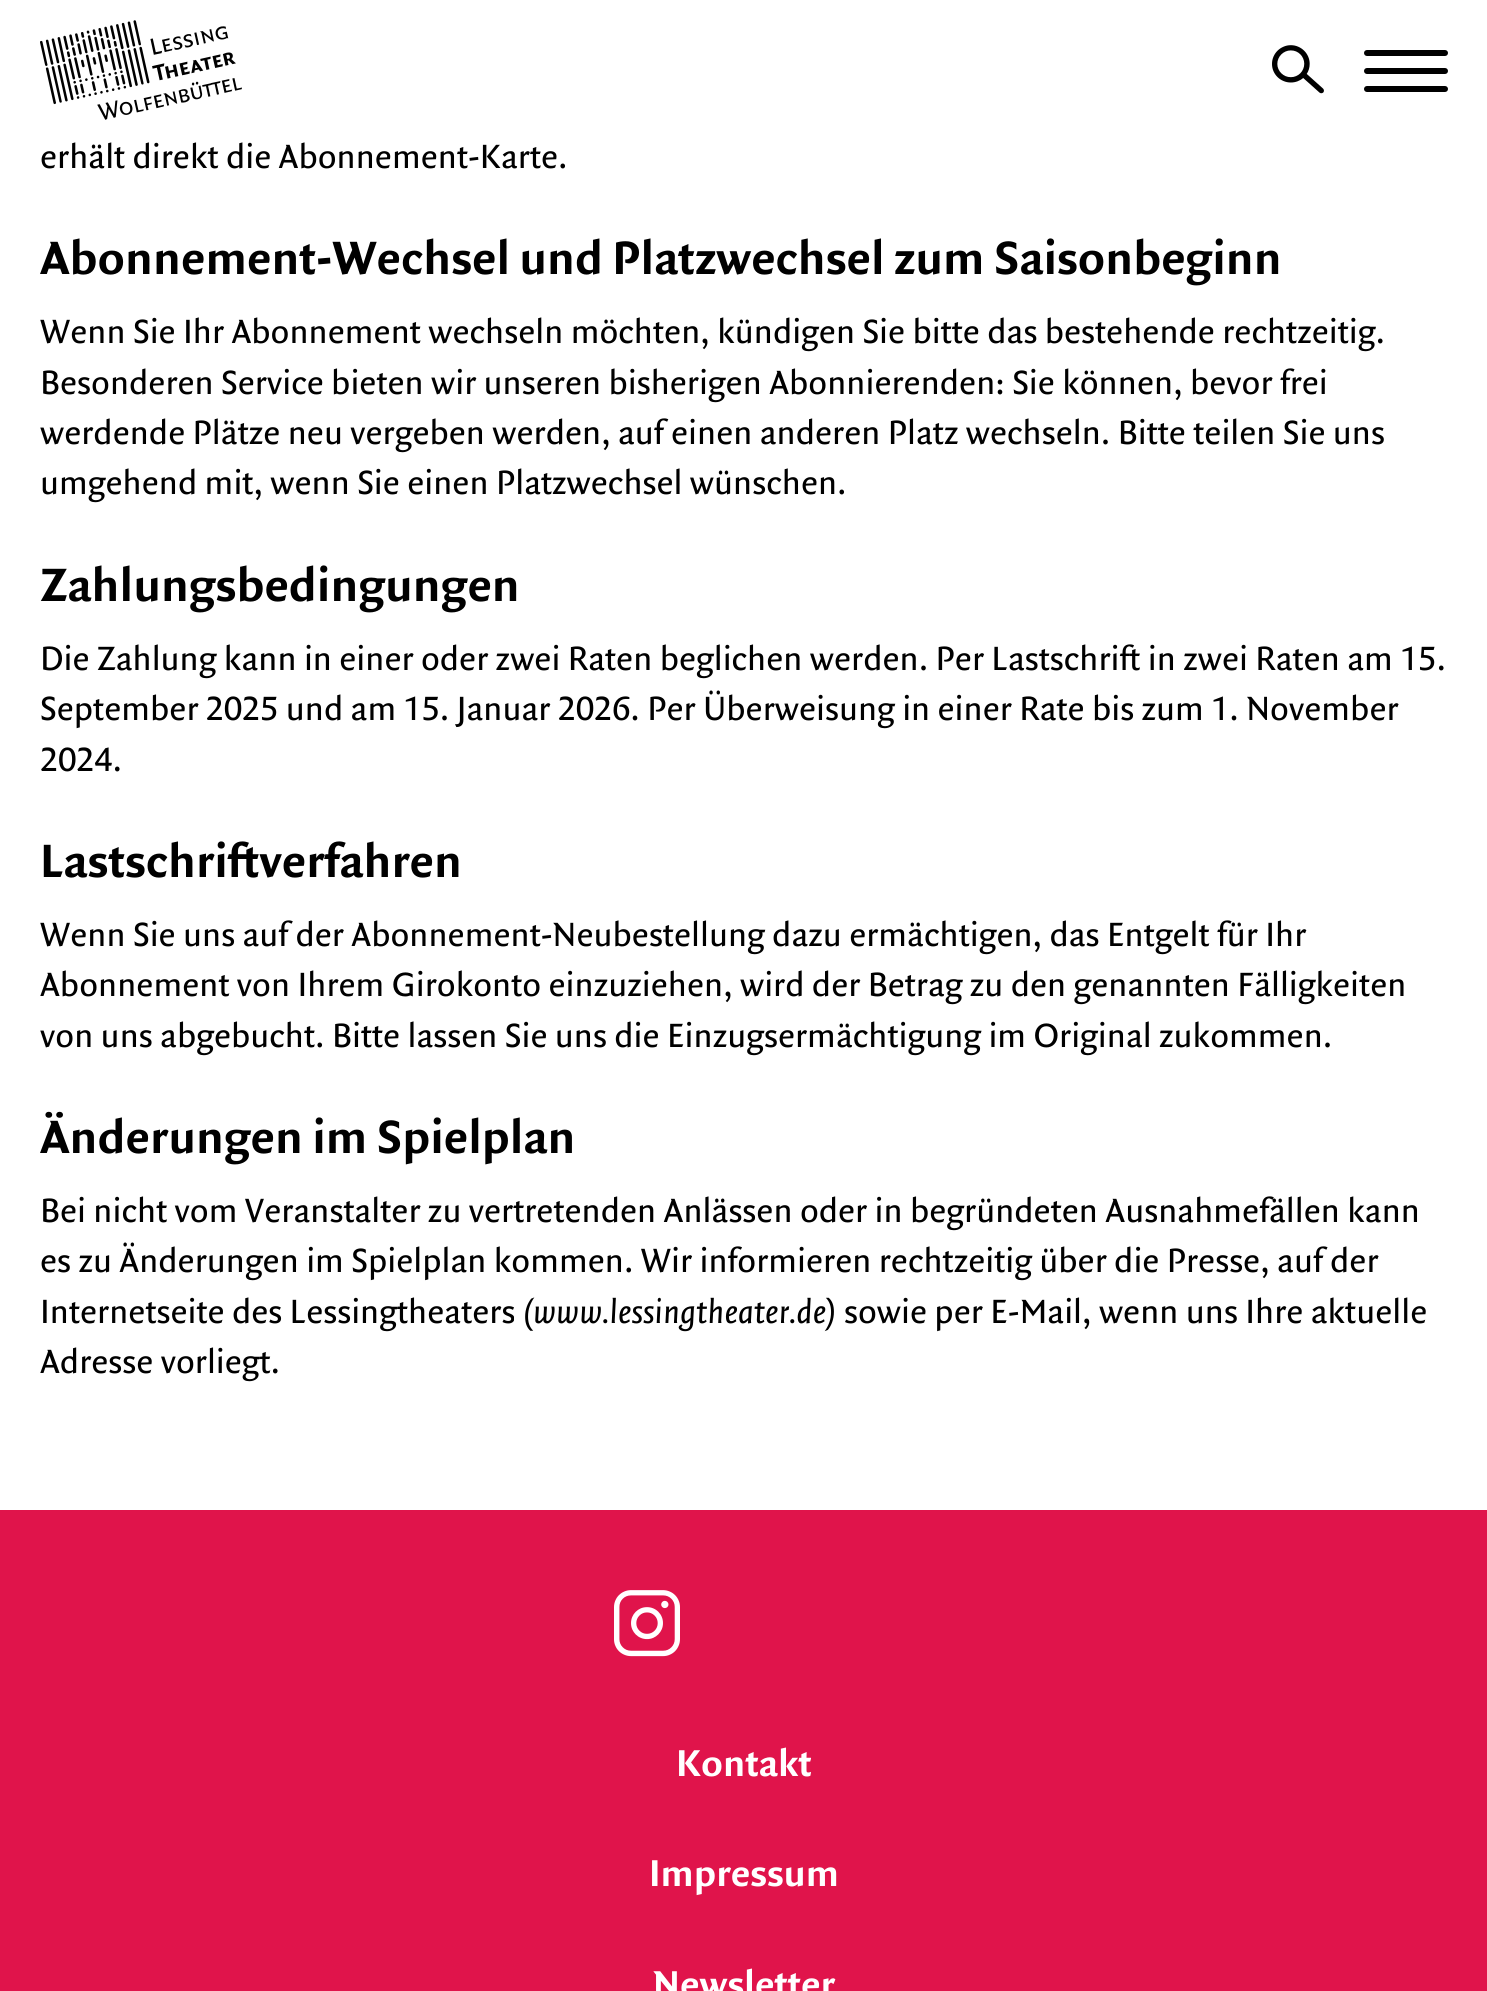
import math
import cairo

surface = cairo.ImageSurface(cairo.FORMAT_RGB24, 1487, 1991)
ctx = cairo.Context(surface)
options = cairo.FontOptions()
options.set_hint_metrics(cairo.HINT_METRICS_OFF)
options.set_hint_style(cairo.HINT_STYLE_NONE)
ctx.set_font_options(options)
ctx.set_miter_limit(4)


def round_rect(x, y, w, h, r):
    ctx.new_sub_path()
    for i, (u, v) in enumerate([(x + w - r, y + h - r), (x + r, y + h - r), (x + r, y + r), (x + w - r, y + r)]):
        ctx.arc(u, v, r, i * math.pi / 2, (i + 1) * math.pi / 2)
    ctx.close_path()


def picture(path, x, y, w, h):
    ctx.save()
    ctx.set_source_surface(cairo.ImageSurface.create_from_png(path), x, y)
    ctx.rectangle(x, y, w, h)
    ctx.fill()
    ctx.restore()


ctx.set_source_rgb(1, 1, 1)
ctx.paint()
picture("img1.png", 40, 20, 202, 100)
picture("img2.png", 1272, 45, 52, 49)
ctx.set_source_rgb(0, 0, 0)
round_rect(1364, 50, 84, 6, 3)
ctx.fill()
round_rect(1364, 68, 84, 6, 3)
ctx.fill()
round_rect(1364, 86, 84, 6, 3)
ctx.fill()
ctx.select_font_face("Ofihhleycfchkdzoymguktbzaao")
ctx.set_font_size(36)
ctx.move_to(40, 168)
ctx.show_text("erhält direkt die Abonnement-Karte.")
ctx.select_font_face("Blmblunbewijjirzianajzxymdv", cairo.FONT_SLANT_NORMAL, cairo.FONT_WEIGHT_BOLD)
ctx.set_font_size(50)
ctx.move_to(40, 274)
ctx.show_text("Abonnement-Wechsel und Platzwechsel zum Saisonbeginn")
ctx.select_font_face("Ofihhleycfchkdzoymguktbzaao")
ctx.set_font_size(36)
ctx.move_to(40, 343)
ctx.show_text("Wenn Sie Ihr Abonnement wechseln möchten, kündigen Sie bitte das bestehende rechtzeitig.")
ctx.move_to(40, 394)
ctx.show_text("Besonderen Service bieten wir unseren bisherigen Abonnierenden: Sie können, bevor frei")
ctx.move_to(40, 444)
ctx.show_text("werdende Plätze neu vergeben werden, auf einen anderen Platz wechseln. Bitte teilen Sie uns")
ctx.move_to(40, 494)
ctx.show_text("umgehend mit, wenn Sie einen Platzwechsel wünschen.")
ctx.select_font_face("Blmblunbewijjirzianajzxymdv", cairo.FONT_SLANT_NORMAL, cairo.FONT_WEIGHT_BOLD)
ctx.set_font_size(50)
ctx.move_to(40, 601)
ctx.show_text("Zahlungsbedingungen")
ctx.select_font_face("Ofihhleycfchkdzoymguktbzaao")
ctx.set_font_size(36)
ctx.move_to(40, 670)
ctx.show_text("Die Zahlung kann in einer oder zwei Raten beglichen werden. Per Lastschrift in zwei Raten am 15.")
ctx.move_to(40, 720)
ctx.show_text("September 2025 und am 15. Januar 2026. Per Überweisung in einer Rate bis zum 1. November")
ctx.move_to(40, 771)
ctx.show_text("2024.")
ctx.select_font_face("Blmblunbewijjirzianajzxymdv", cairo.FONT_SLANT_NORMAL, cairo.FONT_WEIGHT_BOLD)
ctx.set_font_size(50)
ctx.move_to(40, 877)
ctx.show_text("Lastschriftverfahren")
ctx.select_font_face("Ofihhleycfchkdzoymguktbzaao")
ctx.set_font_size(36)
ctx.move_to(40, 946)
ctx.show_text("Wenn Sie uns auf der Abonnement-Neubestellung dazu ermächtigen, das Entgelt für Ihr")
ctx.move_to(40, 996)
ctx.show_text("Abonnement von Ihrem Girokonto einzuziehen, wird der Betrag zu den genannten Fälligkeiten")
ctx.move_to(40, 1047)
ctx.show_text("von uns abgebucht. Bitte lassen Sie uns die Einzugsermächtigung im Original zukommen.")
ctx.select_font_face("Blmblunbewijjirzianajzxymdv", cairo.FONT_SLANT_NORMAL, cairo.FONT_WEIGHT_BOLD)
ctx.set_font_size(50)
ctx.move_to(40, 1153)
ctx.show_text("Änderungen im Spielplan")
ctx.select_font_face("Ofihhleycfchkdzoymguktbzaao")
ctx.set_font_size(36)
ctx.move_to(40, 1222)
ctx.show_text("Bei nicht vom Veranstalter zu vertretenden Anlässen oder in begründeten Ausnahmefällen kann")
ctx.move_to(40, 1272)
ctx.show_text("es zu Änderungen im Spielplan kommen. Wir informieren rechtzeitig über die Presse, auf der")
ctx.move_to(40, 1323)
ctx.show_text("Internetseite des Lessingtheaters")
ctx.select_font_face("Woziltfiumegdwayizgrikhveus", cairo.FONT_SLANT_ITALIC)
ctx.move_to(523, 1323)
ctx.show_text("(www.lessingtheater.de)")
ctx.select_font_face("Ofihhleycfchkdzoymguktbzaao")
ctx.move_to(844, 1323)
ctx.show_text("sowie per E-Mail, wenn uns Ihre aktuelle")
ctx.move_to(40, 1373)
ctx.show_text("Adresse vorliegt.")
ctx.set_source_rgb(0.878, 0.082, 0.294)
ctx.rectangle(0, 1510, 1487, 481)
ctx.fill()
picture("img3.png", 614, 1590, 66, 67)
ctx.select_font_face("Blmblunbewijjirzianajzxymdv", cairo.FONT_SLANT_NORMAL, cairo.FONT_WEIGHT_BOLD)
ctx.set_font_size(40)
ctx.set_source_rgb(1, 1, 1)
ctx.move_to(676, 1776)
ctx.show_text("Kontakt")
ctx.move_to(649, 1886)
ctx.show_text("Impressum")
ctx.move_to(653, 1997)
ctx.show_text("Newsletter")
surface.write_to_png("page.png")
